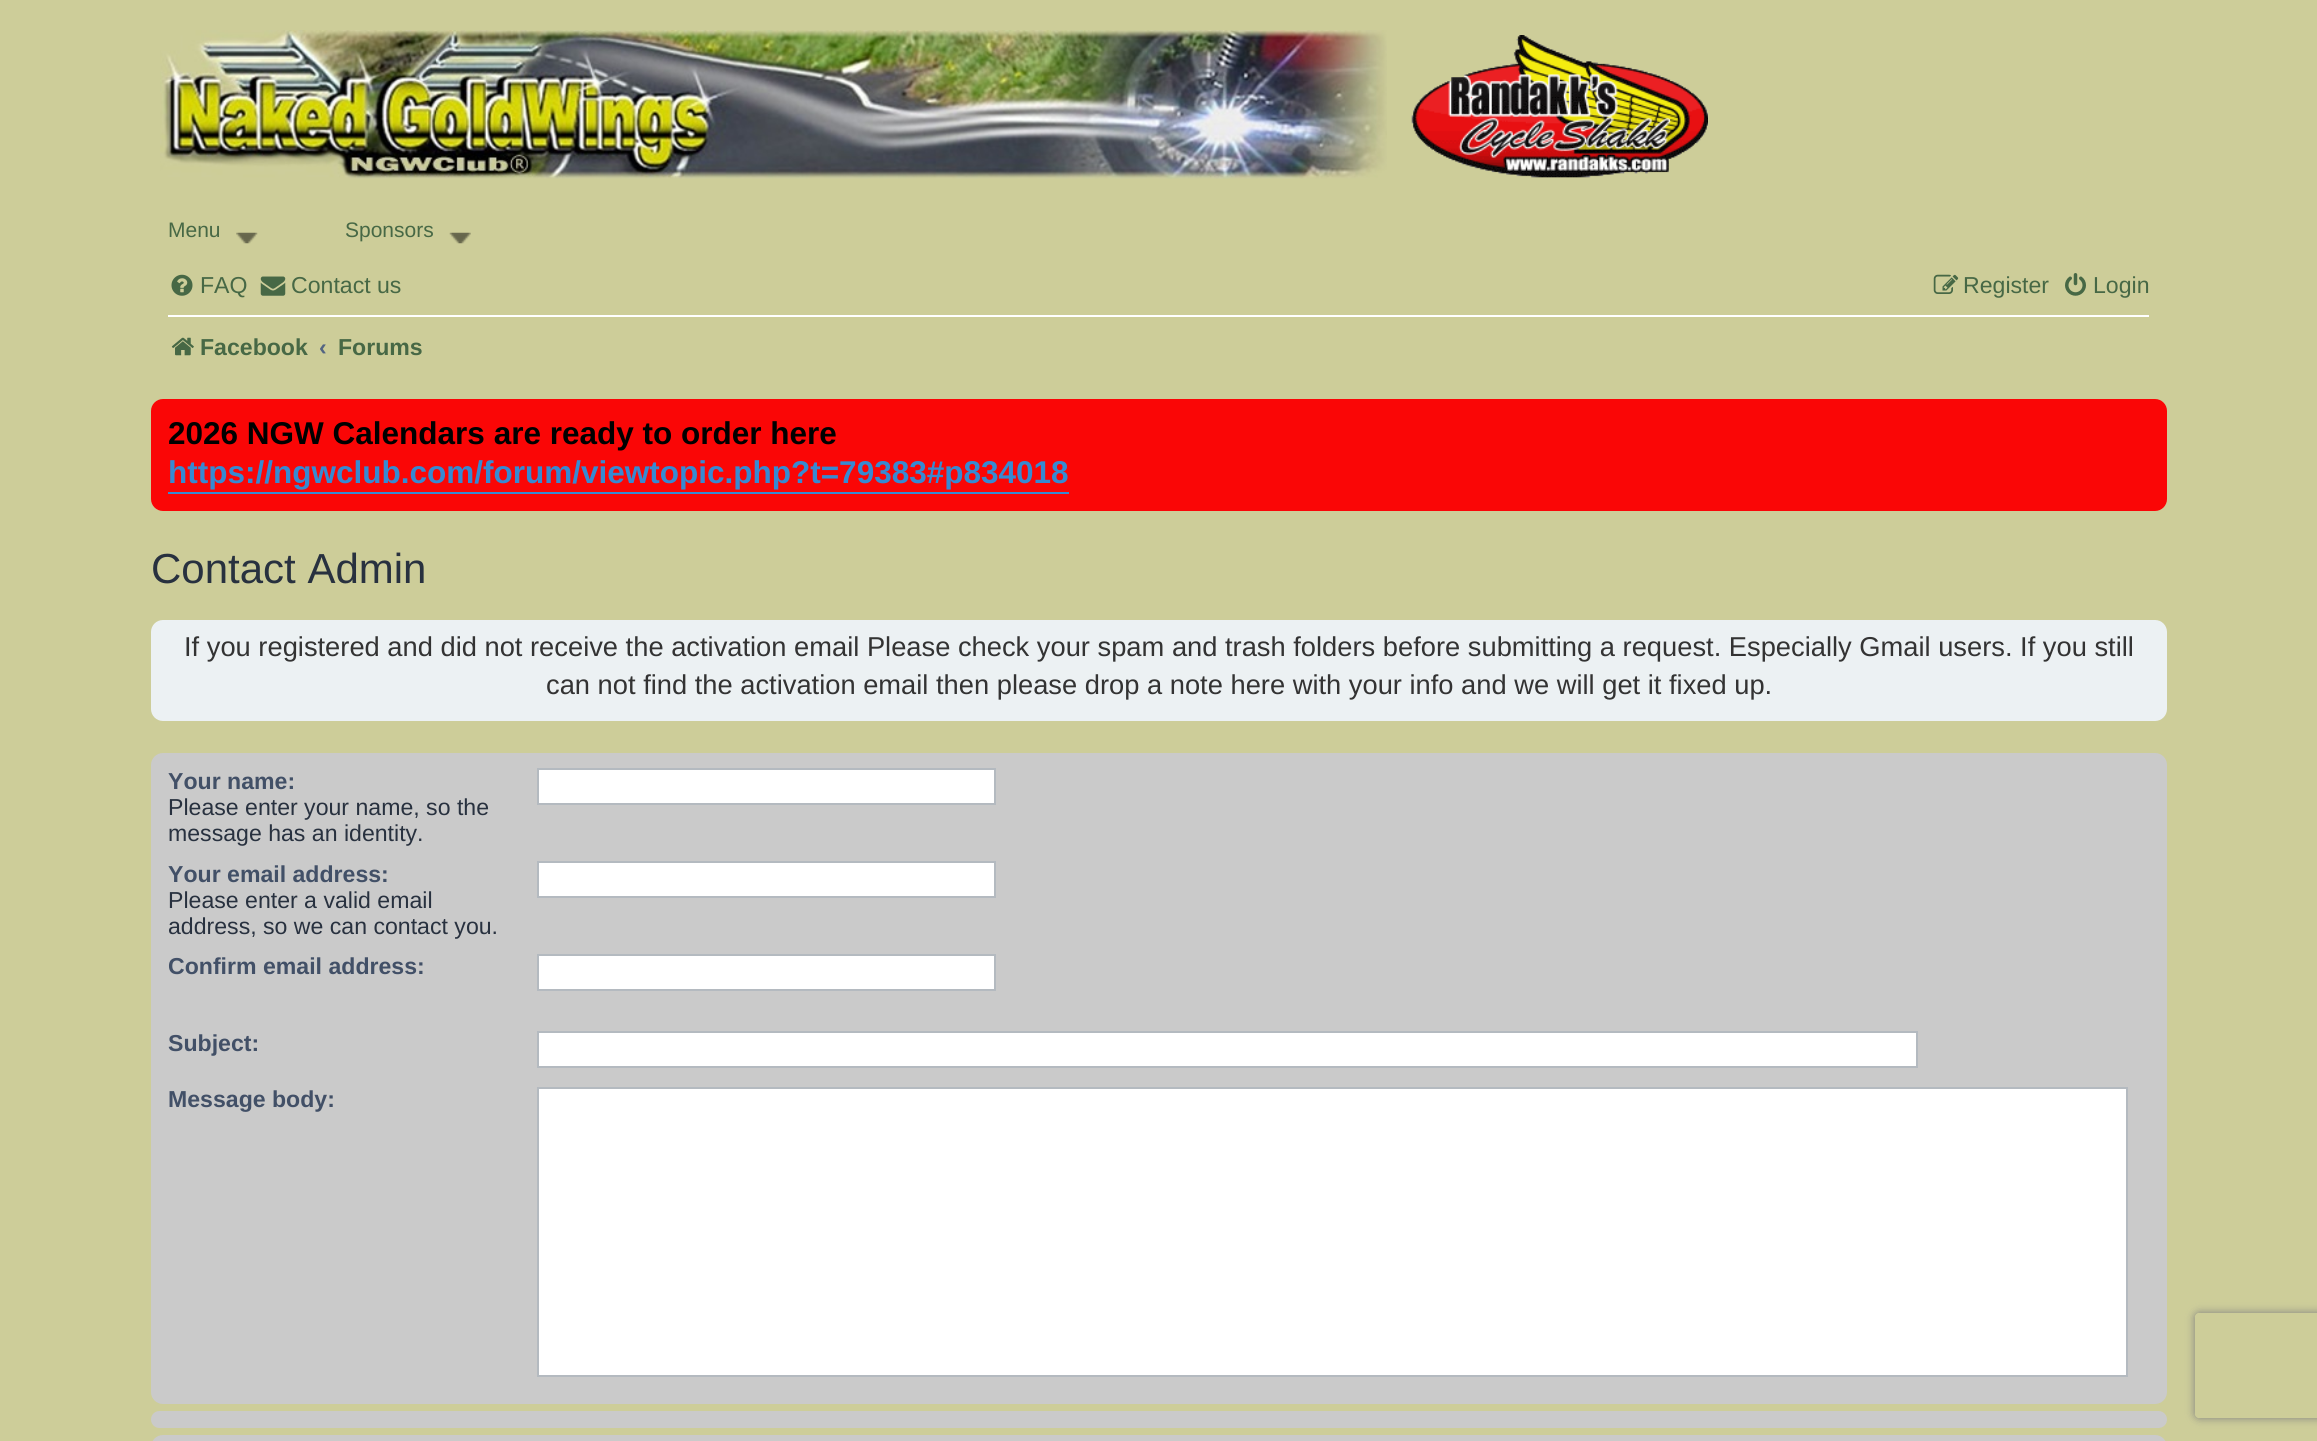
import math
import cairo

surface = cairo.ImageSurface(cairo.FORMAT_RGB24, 2317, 1441)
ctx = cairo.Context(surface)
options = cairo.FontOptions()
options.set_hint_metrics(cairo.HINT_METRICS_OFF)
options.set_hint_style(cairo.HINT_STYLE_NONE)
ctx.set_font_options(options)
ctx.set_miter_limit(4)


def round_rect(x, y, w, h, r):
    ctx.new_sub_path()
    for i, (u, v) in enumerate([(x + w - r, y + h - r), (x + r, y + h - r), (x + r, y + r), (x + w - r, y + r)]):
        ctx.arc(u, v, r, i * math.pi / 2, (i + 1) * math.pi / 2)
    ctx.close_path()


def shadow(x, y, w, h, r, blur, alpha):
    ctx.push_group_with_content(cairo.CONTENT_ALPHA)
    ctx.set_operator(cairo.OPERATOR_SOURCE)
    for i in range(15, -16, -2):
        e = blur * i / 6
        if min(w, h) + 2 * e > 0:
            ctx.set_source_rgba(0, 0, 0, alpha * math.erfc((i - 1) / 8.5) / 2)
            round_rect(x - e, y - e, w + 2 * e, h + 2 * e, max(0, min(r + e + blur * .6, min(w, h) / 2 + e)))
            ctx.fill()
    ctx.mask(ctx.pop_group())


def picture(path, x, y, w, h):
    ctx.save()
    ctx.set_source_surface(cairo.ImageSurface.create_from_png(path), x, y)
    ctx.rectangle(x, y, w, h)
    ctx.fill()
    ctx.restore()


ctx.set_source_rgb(0.804, 0.804, 0.6)
ctx.paint()
picture("img1.png", 160, 30, 1227, 149)
picture("img2.png", 1411, 35, 297, 143)
picture("img3.png", 236, 232, 22, 12)
ctx.select_font_face("Liberation Sans")
ctx.set_font_size(21)
ctx.set_source_rgb(0.278, 0.408, 0.271)
ctx.move_to(168, 237)
ctx.show_text("Menu")
picture("img4.png", 449, 232, 22, 12)
ctx.move_to(345, 237)
ctx.show_text("Sponsors")
picture("img5.png", 171, 274, 22, 22)
ctx.set_font_size(23.1)
ctx.move_to(200, 293)
ctx.show_text("FAQ")
picture("img6.png", 260, 276, 26, 20)
ctx.move_to(291, 293)
ctx.show_text("Contact us")
picture("img7.png", 1933, 274, 26, 20)
ctx.move_to(1963, 293)
ctx.show_text("Register")
picture("img8.png", 2065, 273, 21, 23)
ctx.move_to(2093, 293)
ctx.show_text("Login")
ctx.set_source_rgb(1, 1, 1)
ctx.rectangle(168, 315, 1981, 2)
ctx.fill()
picture("img9.png", 171, 337, 23, 19)
ctx.select_font_face("Liberation Sans", cairo.FONT_SLANT_NORMAL, cairo.FONT_WEIGHT_BOLD)
ctx.set_source_rgb(0.278, 0.408, 0.271)
ctx.move_to(200, 355)
ctx.show_text("Facebook")
ctx.set_source_rgb(0.325, 0.392, 0.51)
ctx.move_to(319, 355)
ctx.show_text("‹")
ctx.set_source_rgb(0.278, 0.408, 0.271)
ctx.move_to(338, 355)
ctx.show_text("Forums")
ctx.set_source_rgb(0.98, 0.027, 0.027)
round_rect(151, 399, 2016, 112, 12)
ctx.fill()
ctx.set_font_size(31.5)
ctx.set_source_rgb(0, 0, 0)
ctx.move_to(168, 444)
ctx.show_text("2026 NGW Calendars are ready to order here")
ctx.set_source_rgb(0.212, 0.541, 0.824)
ctx.rectangle(168, 492, 901, 2)
ctx.fill()
ctx.move_to(168, 483)
ctx.show_text("https://ngwclub.com/forum/viewtopic.php?t=79383#p834018")
ctx.select_font_face("Liberation Sans")
ctx.set_font_size(42)
ctx.set_source_rgb(0.157, 0.192, 0.247)
ctx.move_to(151, 583)
ctx.show_text("Contact Admin")
ctx.set_source_rgb(0.925, 0.945, 0.953)
round_rect(151, 620, 2016, 101, 12)
ctx.fill()
ctx.set_font_size(27.3)
ctx.set_source_rgb(0.2, 0.2, 0.2)
ctx.move_to(184, 656)
ctx.show_text("If you registered and did not receive the activation email Please check your spam and trash folders before submitting a request. Especially Gmail users. If you still")
ctx.move_to(546, 694)
ctx.show_text("can not find the activation email then please drop a note here with your info and we will get it fixed up.")
ctx.set_source_rgb(0.792, 0.792, 0.792)
round_rect(151, 753, 2016, 651, 12)
ctx.fill()
ctx.select_font_face("Liberation Sans", cairo.FONT_SLANT_NORMAL, cairo.FONT_WEIGHT_BOLD)
ctx.set_font_size(23.1)
ctx.set_source_rgb(0.259, 0.314, 0.404)
ctx.move_to(168, 789)
ctx.show_text("Your name:")
ctx.select_font_face("Liberation Sans")
ctx.set_source_rgb(0.157, 0.192, 0.247)
ctx.move_to(168, 815)
ctx.show_text("Please enter your name, so the")
ctx.move_to(168, 841)
ctx.show_text("message has an identity.")
ctx.set_source_rgb(1, 1, 1)
ctx.rectangle(538, 769, 457, 35)
ctx.fill_preserve()
ctx.set_source_rgb(0.706, 0.729, 0.753)
ctx.stroke()
ctx.select_font_face("Liberation Sans", cairo.FONT_SLANT_NORMAL, cairo.FONT_WEIGHT_BOLD)
ctx.set_source_rgb(0.259, 0.314, 0.404)
ctx.move_to(168, 882)
ctx.show_text("Your email address:")
ctx.select_font_face("Liberation Sans")
ctx.set_source_rgb(0.157, 0.192, 0.247)
ctx.move_to(168, 908)
ctx.show_text("Please enter a valid email")
ctx.move_to(168, 934)
ctx.show_text("address, so we can contact you.")
ctx.set_source_rgb(1, 1, 1)
ctx.rectangle(538, 862, 457, 35)
ctx.fill_preserve()
ctx.set_source_rgb(0.706, 0.729, 0.753)
ctx.stroke()
ctx.select_font_face("Liberation Sans", cairo.FONT_SLANT_NORMAL, cairo.FONT_WEIGHT_BOLD)
ctx.set_source_rgb(0.259, 0.314, 0.404)
ctx.move_to(168, 974)
ctx.show_text("Confirm email address:")
ctx.set_source_rgb(1, 1, 1)
ctx.rectangle(538, 955, 457, 35)
ctx.fill_preserve()
ctx.set_source_rgb(0.706, 0.729, 0.753)
ctx.stroke()
ctx.set_source_rgb(0.259, 0.314, 0.404)
ctx.move_to(168, 1051)
ctx.show_text("Subject:")
ctx.set_source_rgb(1, 1, 1)
ctx.rectangle(538, 1032, 1379, 35)
ctx.fill_preserve()
ctx.set_source_rgb(0.706, 0.729, 0.753)
ctx.stroke()
ctx.set_source_rgb(0.259, 0.314, 0.404)
ctx.move_to(168, 1107)
ctx.show_text("Message body:")
ctx.set_source_rgb(1, 1, 1)
ctx.rectangle(538, 1088, 1589, 288)
ctx.fill_preserve()
ctx.set_source_rgb(0.706, 0.729, 0.753)
ctx.stroke()
ctx.set_source_rgb(0.792, 0.792, 0.792)
round_rect(151, 1411, 2016, 17, 8.5)
ctx.fill()
ctx.save()
ctx.set_fill_rule(cairo.FILL_RULE_EVEN_ODD)
ctx.new_path()
ctx.move_to(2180, 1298)
ctx.line_to(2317, 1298)
ctx.line_to(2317, 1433)
ctx.line_to(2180, 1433)
ctx.close_path()
ctx.move_to(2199, 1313)
ctx.line_to(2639, 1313)
ctx.curve_to(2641, 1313, 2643, 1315, 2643, 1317)
ctx.line_to(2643, 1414)
ctx.curve_to(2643, 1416, 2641, 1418, 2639, 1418)
ctx.line_to(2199, 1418)
ctx.curve_to(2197, 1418, 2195, 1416, 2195, 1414)
ctx.line_to(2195, 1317)
ctx.curve_to(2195, 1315, 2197, 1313, 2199, 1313)
ctx.close_path()
ctx.clip()
ctx.set_source_rgb(0.502, 0.502, 0.502)
shadow(2195, 1313, 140, 105, 4, 4.5, 1)
ctx.restore()
round_rect(151, 1435, 2016, 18, 12)
ctx.fill()
surface.write_to_png("page.png")
